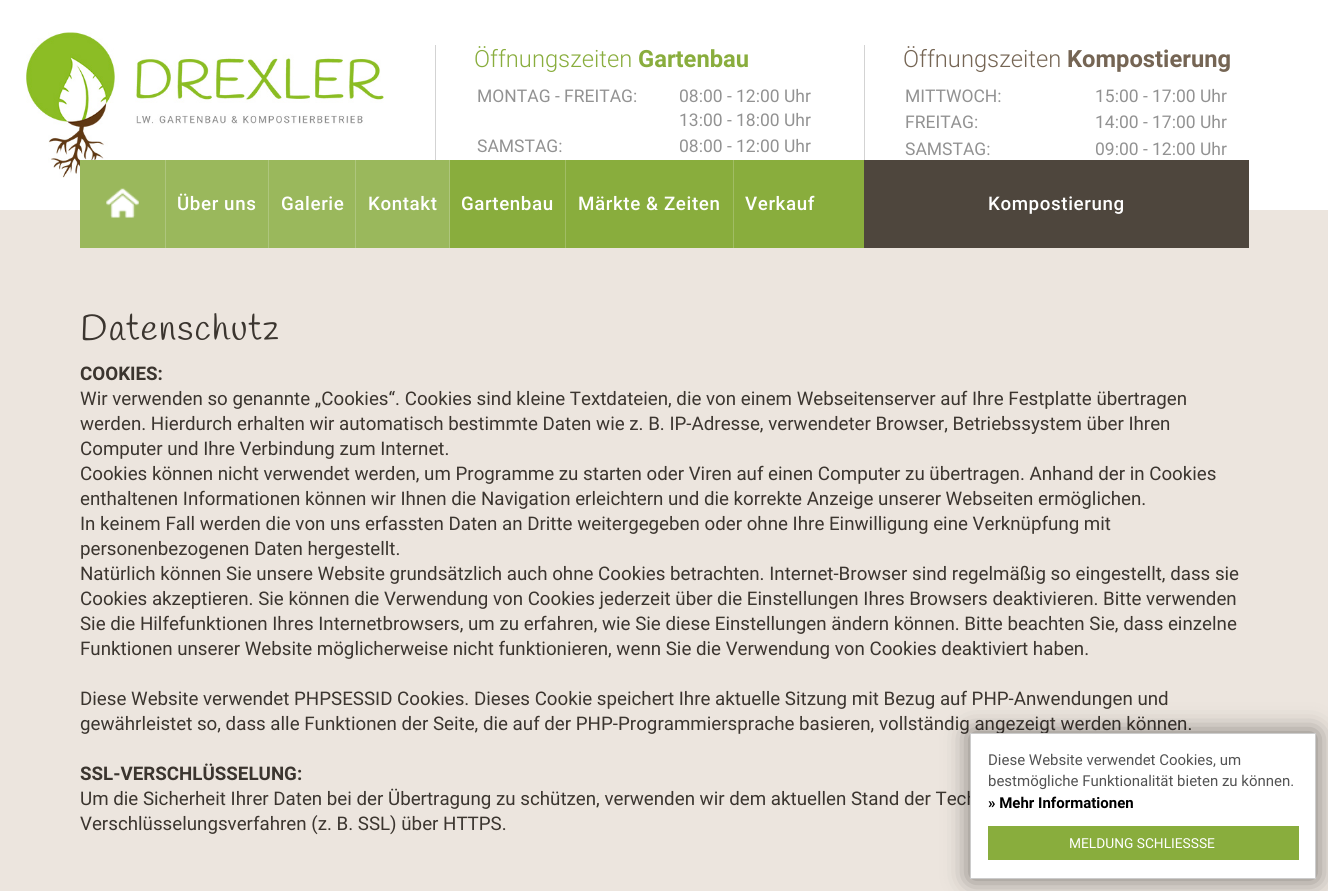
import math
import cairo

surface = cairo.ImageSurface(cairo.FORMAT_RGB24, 1328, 891)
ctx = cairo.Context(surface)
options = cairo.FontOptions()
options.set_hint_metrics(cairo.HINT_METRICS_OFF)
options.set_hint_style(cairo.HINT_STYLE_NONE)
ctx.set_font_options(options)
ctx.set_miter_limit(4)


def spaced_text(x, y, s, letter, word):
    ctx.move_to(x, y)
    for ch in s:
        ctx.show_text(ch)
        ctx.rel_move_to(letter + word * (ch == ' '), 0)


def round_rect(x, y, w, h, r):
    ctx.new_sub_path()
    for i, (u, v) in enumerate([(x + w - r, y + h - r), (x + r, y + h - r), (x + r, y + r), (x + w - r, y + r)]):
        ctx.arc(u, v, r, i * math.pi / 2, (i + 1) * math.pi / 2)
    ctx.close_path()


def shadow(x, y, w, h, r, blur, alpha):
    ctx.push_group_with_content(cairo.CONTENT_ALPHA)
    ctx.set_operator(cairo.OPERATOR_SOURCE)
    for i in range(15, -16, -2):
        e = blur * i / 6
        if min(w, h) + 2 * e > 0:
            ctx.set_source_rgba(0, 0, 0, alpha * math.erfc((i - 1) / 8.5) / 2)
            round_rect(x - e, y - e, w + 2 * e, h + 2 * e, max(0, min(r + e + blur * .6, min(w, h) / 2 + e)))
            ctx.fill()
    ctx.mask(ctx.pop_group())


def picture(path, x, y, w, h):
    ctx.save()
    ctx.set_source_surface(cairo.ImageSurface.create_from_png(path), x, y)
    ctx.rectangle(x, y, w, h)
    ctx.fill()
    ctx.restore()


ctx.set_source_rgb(1, 1, 1)
ctx.paint()
picture("img1.png", 26, 32, 358, 146)
ctx.set_source_rgb(0.827, 0.827, 0.827)
ctx.rectangle(864, 45, 1, 116)
ctx.fill()
ctx.rectangle(435, 45, 1, 116)
ctx.fill()
ctx.select_font_face("Roboto Light")
ctx.set_font_size(23.75)
ctx.set_source_rgb(0.537, 0.678, 0.239)
ctx.move_to(474, 67)
ctx.show_text("Öffnungszeiten")
ctx.select_font_face("Roboto", cairo.FONT_SLANT_NORMAL, cairo.FONT_WEIGHT_BOLD)
ctx.move_to(638, 67)
ctx.show_text("Gartenbau")
ctx.select_font_face("Roboto")
ctx.set_font_size(17.5)
ctx.set_source_rgb(0.573, 0.573, 0.573)
ctx.move_to(477, 102)
ctx.show_text("MONTAG - FREITAG:")
ctx.move_to(679, 102)
ctx.show_text("08:00 - 12:00 Uhr")
ctx.move_to(679, 126)
ctx.show_text("13:00 - 18:00 Uhr")
ctx.move_to(477, 152)
ctx.show_text("SAMSTAG:")
ctx.move_to(679, 152)
ctx.show_text("08:00 - 12:00 Uhr")
ctx.select_font_face("Roboto Light")
ctx.set_font_size(23.75)
ctx.set_source_rgb(0.459, 0.396, 0.329)
ctx.move_to(903, 67)
ctx.show_text("Öffnungszeiten")
ctx.select_font_face("Roboto", cairo.FONT_SLANT_NORMAL, cairo.FONT_WEIGHT_BOLD)
ctx.move_to(1067, 67)
ctx.show_text("Kompostierung")
ctx.select_font_face("Roboto")
ctx.set_font_size(17.5)
ctx.set_source_rgb(0.573, 0.573, 0.573)
ctx.move_to(905, 102)
ctx.show_text("MITTWOCH:")
ctx.move_to(1095, 102)
ctx.show_text("15:00 - 17:00 Uhr")
ctx.move_to(905, 128)
ctx.show_text("FREITAG:")
ctx.move_to(1095, 128)
ctx.show_text("14:00 - 17:00 Uhr")
ctx.move_to(905, 155)
ctx.show_text("SAMSTAG:")
ctx.move_to(1095, 155)
ctx.show_text("09:00 - 12:00 Uhr")
ctx.set_source_rgb(0.922, 0.898, 0.871)
ctx.rectangle(0, 210, 1328, 681)
ctx.fill()
ctx.set_source_rgb(0.537, 0.678, 0.239)
ctx.rectangle(450, 160, 414, 88)
ctx.fill()
ctx.set_source_rgb(0.604, 0.722, 0.361)
ctx.rectangle(80, 160, 85, 88)
ctx.fill()
ctx.set_source_rgb(0.682, 0.776, 0.49)
ctx.rectangle(165, 160, 1, 88)
ctx.fill()
picture("img2.png", 106, 188, 33, 30)
ctx.set_source_rgb(0.604, 0.722, 0.361)
ctx.rectangle(166, 160, 102, 88)
ctx.fill()
ctx.set_source_rgb(0.682, 0.776, 0.49)
ctx.rectangle(268, 160, 1, 88)
ctx.fill()
ctx.select_font_face("Roboto Medium")
ctx.set_font_size(18.75)
ctx.set_source_rgb(1, 1, 1)
spaced_text(177, 210, "Über uns", 0.6, 0)
ctx.set_source_rgb(0.604, 0.722, 0.361)
ctx.rectangle(269, 160, 86, 88)
ctx.fill()
ctx.set_source_rgb(0.682, 0.776, 0.49)
ctx.rectangle(355, 160, 1, 88)
ctx.fill()
ctx.set_source_rgb(1, 1, 1)
spaced_text(281, 210, "Galerie", 0.6, 0)
ctx.set_source_rgb(0.604, 0.722, 0.361)
ctx.rectangle(356, 160, 93, 88)
ctx.fill()
ctx.set_source_rgb(0.682, 0.776, 0.49)
ctx.rectangle(449, 160, 1, 88)
ctx.fill()
ctx.set_source_rgb(1, 1, 1)
spaced_text(368, 210, "Kontakt", 0.6, 0)
ctx.set_source_rgb(0.631, 0.741, 0.392)
ctx.rectangle(565, 160, 1, 88)
ctx.fill()
ctx.set_source_rgb(1, 1, 1)
spaced_text(461, 210, "Gartenbau", 0.6, 0)
ctx.set_source_rgb(0.631, 0.741, 0.392)
ctx.rectangle(733, 160, 1, 88)
ctx.fill()
ctx.set_source_rgb(1, 1, 1)
spaced_text(578, 210, "Märkte & Zeiten", 0.6, 0)
spaced_text(745, 210, "Verkauf", 0.6, 0)
ctx.set_source_rgb(0.306, 0.275, 0.239)
ctx.rectangle(864, 160, 385, 88)
ctx.fill()
ctx.set_source_rgb(1, 1, 1)
spaced_text(988, 210, "Kompostierung", 0.6, 0)
ctx.select_font_face("Handlee")
ctx.set_font_size(36.25)
ctx.set_source_rgb(0.231, 0.208, 0.184)
spaced_text(80, 340, "Datenschutz", 1.25, 0)
ctx.select_font_face("Roboto", cairo.FONT_SLANT_NORMAL, cairo.FONT_WEIGHT_BOLD)
ctx.set_font_size(18.75)
ctx.move_to(80, 380)
ctx.show_text("COOKIES:")
ctx.select_font_face("Roboto")
ctx.move_to(80, 405)
ctx.show_text("Wir verwenden so genannte „Cookies“. Cookies sind kleine Textdateien, die von einem Webseitenserver auf Ihre Festplatte übertragen")
ctx.move_to(80, 430)
ctx.show_text("werden. Hierdurch erhalten wir automatisch bestimmte Daten wie z. B. IP-Adresse, verwendeter Browser, Betriebssystem über Ihren")
ctx.move_to(80, 455)
ctx.show_text("Computer und Ihre Verbindung zum Internet.")
ctx.move_to(80, 480)
ctx.show_text("Cookies können nicht verwendet werden, um Programme zu starten oder Viren auf einen Computer zu übertragen. Anhand der in Cookies")
ctx.move_to(80, 505)
ctx.show_text("enthaltenen Informationen können wir Ihnen die Navigation erleichtern und die korrekte Anzeige unserer Webseiten ermöglichen.")
ctx.move_to(80, 530)
ctx.show_text("In keinem Fall werden die von uns erfassten Daten an Dritte weitergegeben oder ohne Ihre Einwilligung eine Verknüpfung mit")
ctx.move_to(80, 555)
ctx.show_text("personenbezogenen Daten hergestellt.")
ctx.move_to(80, 580)
ctx.show_text("Natürlich können Sie unsere Website grundsätzlich auch ohne Cookies betrachten. Internet-Browser sind regelmäßig so eingestellt, dass sie")
ctx.move_to(80, 605)
ctx.show_text("Cookies akzeptieren. Sie können die Verwendung von Cookies jederzeit über die Einstellungen Ihres Browsers deaktivieren. Bitte verwenden")
ctx.move_to(80, 630)
ctx.show_text("Sie die Hilfefunktionen Ihres Internetbrowsers, um zu erfahren, wie Sie diese Einstellungen ändern können. Bitte beachten Sie, dass einzelne")
ctx.move_to(80, 655)
ctx.show_text("Funktionen unserer Website möglicherweise nicht funktionieren, wenn Sie die Verwendung von Cookies deaktiviert haben.")
ctx.move_to(80, 705)
ctx.show_text("Diese Website verwendet PHPSESSID Cookies. Dieses Cookie speichert Ihre aktuelle Sitzung mit Bezug auf PHP-Anwendungen und")
ctx.move_to(80, 730)
ctx.show_text("gewährleistet so, dass alle Funktionen der Seite, die auf der PHP-Programmiersprache basieren, vollständig angezeigt werden können.")
ctx.select_font_face("Roboto", cairo.FONT_SLANT_NORMAL, cairo.FONT_WEIGHT_BOLD)
ctx.move_to(80, 780)
ctx.show_text("SSL-VERSCHLÜSSELUNG:")
ctx.select_font_face("Roboto")
ctx.move_to(80, 805)
ctx.show_text("Um die Sicherheit Ihrer Daten bei der Übertragung zu schützen, verwenden wir dem aktuellen Stand der Tech")
ctx.move_to(80, 830)
ctx.show_text("Verschlüsselungsverfahren (z. B. SSL) über HTTPS.")
ctx.set_source_rgb(0, 0, 0)
shadow(970, 733, 346, 146, 0, 12.5, 0.5)
ctx.set_source_rgb(1, 1, 1)
ctx.rectangle(970.5, 733.5, 345, 145)
ctx.fill_preserve()
ctx.set_source_rgb(0.8, 0.8, 0.8)
ctx.set_line_width(1)
ctx.stroke()
ctx.set_font_size(15)
ctx.set_source_rgb(0.322, 0.322, 0.322)
ctx.move_to(988, 765)
ctx.show_text("Diese Website verwendet Cookies, um")
ctx.move_to(988, 786)
ctx.show_text("bestmögliche Funktionalität bieten zu können.")
ctx.select_font_face("Roboto", cairo.FONT_SLANT_NORMAL, cairo.FONT_WEIGHT_BOLD)
ctx.set_source_rgb(0, 0, 0)
ctx.move_to(988, 808)
ctx.show_text("» Mehr Informationen")
ctx.set_source_rgb(0.537, 0.678, 0.239)
ctx.rectangle(988, 826, 311, 34)
ctx.fill()
ctx.select_font_face("Roboto")
ctx.set_font_size(13.75)
ctx.set_source_rgb(1, 1, 1)
ctx.move_to(1069, 848)
ctx.show_text("MELDUNG SCHLIESSSE")
surface.write_to_png("page.png")
